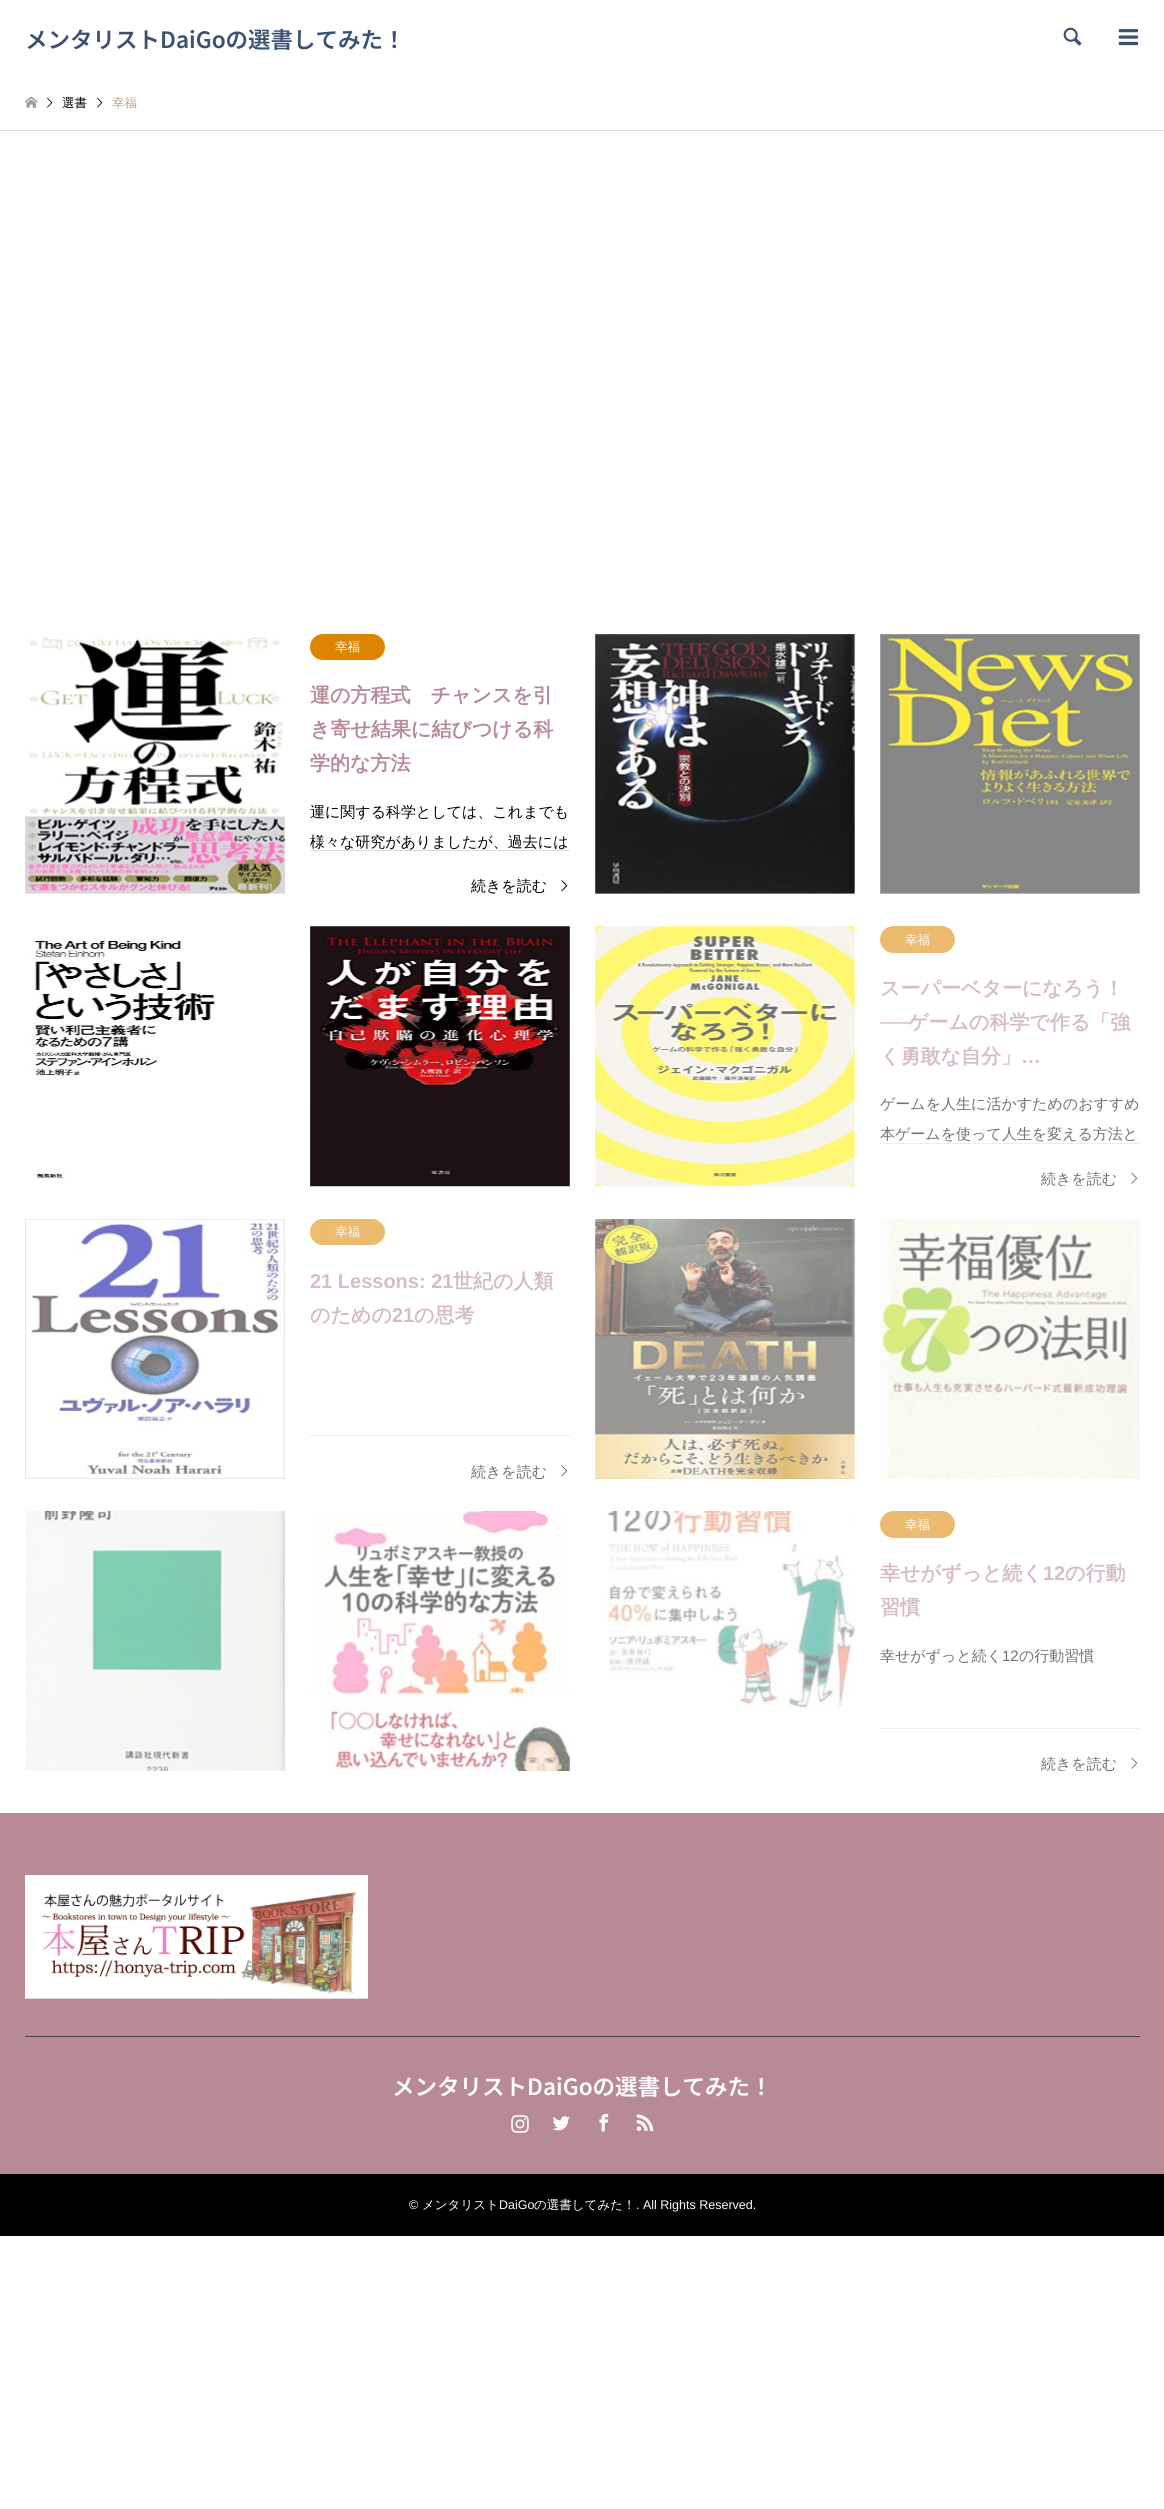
import math
import cairo

surface = cairo.ImageSurface(cairo.FORMAT_RGB24, 1164, 2509)
ctx = cairo.Context(surface)
options = cairo.FontOptions()
options.set_hint_metrics(cairo.HINT_METRICS_OFF)
options.set_hint_style(cairo.HINT_STYLE_NONE)
ctx.set_font_options(options)
ctx.set_miter_limit(4)


def round_rect(x, y, w, h, r):
    ctx.new_sub_path()
    for i, (u, v) in enumerate([(x + w - r, y + h - r), (x + r, y + h - r), (x + r, y + r), (x + w - r, y + r)]):
        ctx.arc(u, v, r, i * math.pi / 2, (i + 1) * math.pi / 2)
    ctx.close_path()


def picture(path, x, y, w, h):
    ctx.save()
    ctx.set_source_surface(cairo.ImageSurface.create_from_png(path), x, y)
    ctx.rectangle(x, y, w, h)
    ctx.fill()
    ctx.restore()


ctx.set_source_rgb(1, 1, 1)
ctx.paint()
ctx.select_font_face("Noto Sans JP SemiBold")
ctx.set_font_size(22.5)
ctx.set_source_rgb(0.235, 0.314, 0.451)
ctx.move_to(25, 48)
ctx.show_text("メンタリストDaiGoの選書してみた！")
picture("img1.png", 1063, 27, 19, 19)
picture("img2.png", 1118, 29, 21, 17)
ctx.set_source_rgb(0.867, 0.867, 0.867)
ctx.rectangle(0, 130, 1164, 1)
ctx.fill()
picture("img3.png", 25, 96, 13, 12)
picture("img4.png", 47, 97, 6, 11)
ctx.select_font_face("WenQuanYi Zen Hei Medium")
ctx.set_font_size(12.5)
ctx.set_source_rgb(0, 0, 0)
ctx.move_to(62, 107)
ctx.show_text("選書")
picture("img4.png", 97, 97, 6, 11)
ctx.set_source_rgb(0.714, 0.62, 0.518)
ctx.move_to(112, 107)
ctx.show_text("幸福")
picture("img5.png", 25, 636, 260, 258)
ctx.set_source_rgb(0.867, 0.522, 0)
round_rect(310, 634, 75, 26, 13)
ctx.fill()
ctx.set_source_rgb(1, 1, 1)
ctx.move_to(335, 651)
ctx.show_text("幸福")
ctx.select_font_face("WenQuanYi Zen Hei", cairo.FONT_SLANT_NORMAL, cairo.FONT_WEIGHT_BOLD)
ctx.set_font_size(20)
ctx.set_source_rgb(0.718, 0.541, 0.58)
ctx.move_to(310, 702)
ctx.show_text("運の方程式　チャンスを引")
ctx.move_to(310, 736)
ctx.show_text("き寄せ結果に結びつける科")
ctx.move_to(310, 770)
ctx.show_text("学的な方法")
ctx.select_font_face("WenQuanYi Zen Hei Medium")
ctx.set_font_size(15)
ctx.set_source_rgb(0, 0, 0)
ctx.move_to(310, 817)
ctx.show_text("運に関する科学としては、これまでも")
ctx.move_to(310, 847)
ctx.show_text("様々な研究がありましたが、過去には")
ctx.set_source_rgb(0.867, 0.867, 0.867)
ctx.rectangle(310, 850, 260, 1)
ctx.fill()
ctx.set_source_rgb(0, 0, 0)
ctx.move_to(471, 891)
ctx.show_text("続きを読む")
picture("img6.png", 561, 880, 7, 12)
picture("img7.png", 595, 634, 260, 260)
picture("img8.png", 880, 634, 260, 260)
picture("img9.png", 31, 939, 184, 241)
picture("img10.png", 310, 926, 260, 261)
picture("img11.png", 595, 926, 260, 261)
ctx.set_source_rgb(0.925, 0.733, 0.439)
round_rect(880, 926, 75, 27, 13.5)
ctx.fill()
ctx.set_font_size(12.5)
ctx.set_source_rgb(1, 1, 1)
ctx.move_to(905, 944)
ctx.show_text("幸福")
ctx.select_font_face("WenQuanYi Zen Hei", cairo.FONT_SLANT_NORMAL, cairo.FONT_WEIGHT_BOLD)
ctx.set_font_size(20)
ctx.set_source_rgb(0.843, 0.741, 0.765)
ctx.move_to(880, 995)
ctx.show_text("スーパーベターになろう！")
ctx.select_font_face("Liberation Sans", cairo.FONT_SLANT_NORMAL, cairo.FONT_WEIGHT_BOLD)
ctx.move_to(880, 1029)
ctx.show_text("──")
ctx.select_font_face("WenQuanYi Zen Hei", cairo.FONT_SLANT_NORMAL, cairo.FONT_WEIGHT_BOLD)
ctx.move_to(908, 1029)
ctx.show_text("ゲームの科学で作る「強")
ctx.move_to(880, 1063)
ctx.show_text("く勇敢な自分」")
ctx.select_font_face("Liberation Sans", cairo.FONT_SLANT_NORMAL, cairo.FONT_WEIGHT_BOLD)
ctx.move_to(1021, 1063)
ctx.show_text("…")
ctx.select_font_face("WenQuanYi Zen Hei Medium")
ctx.set_font_size(15)
ctx.set_source_rgb(0.439, 0.439, 0.439)
ctx.move_to(880, 1109)
ctx.show_text("ゲームを人生に活かすためのおすすめ")
ctx.move_to(880, 1139)
ctx.show_text("本ゲームを使って人生を変える方法と")
ctx.set_source_rgb(0.925, 0.925, 0.925)
ctx.rectangle(880, 1143, 260, 1)
ctx.fill()
ctx.save()
ctx.rectangle(595, 926, 545, 260)
ctx.clip()
ctx.set_source_rgb(0.439, 0.439, 0.439)
ctx.move_to(1041, 1184)
ctx.show_text("続きを読む")
ctx.restore()
picture("img12.png", 1131, 1172, 7, 12)
picture("img13.png", 25, 1219, 260, 260)
ctx.set_source_rgb(0.925, 0.733, 0.439)
round_rect(310, 1219, 75, 26, 13)
ctx.fill()
ctx.set_font_size(12.5)
ctx.set_source_rgb(1, 1, 1)
ctx.move_to(335, 1236)
ctx.show_text("幸福")
ctx.select_font_face("Liberation Sans", cairo.FONT_SLANT_NORMAL, cairo.FONT_WEIGHT_BOLD)
ctx.set_font_size(20)
ctx.set_source_rgb(0.843, 0.741, 0.765)
ctx.move_to(310, 1288)
ctx.show_text("21 Lessons: 21")
ctx.select_font_face("WenQuanYi Zen Hei", cairo.FONT_SLANT_NORMAL, cairo.FONT_WEIGHT_BOLD)
ctx.move_to(453, 1288)
ctx.show_text("世紀の人類")
ctx.move_to(310, 1322)
ctx.show_text("のための")
ctx.select_font_face("Liberation Sans", cairo.FONT_SLANT_NORMAL, cairo.FONT_WEIGHT_BOLD)
ctx.move_to(392, 1322)
ctx.show_text("21")
ctx.select_font_face("WenQuanYi Zen Hei", cairo.FONT_SLANT_NORMAL, cairo.FONT_WEIGHT_BOLD)
ctx.move_to(414, 1322)
ctx.show_text("の思考")
ctx.set_source_rgb(0.925, 0.925, 0.925)
ctx.rectangle(310, 1435, 260, 1)
ctx.fill()
ctx.save()
ctx.rectangle(25, 1219, 545, 260)
ctx.clip()
ctx.select_font_face("WenQuanYi Zen Hei Medium")
ctx.set_font_size(15)
ctx.set_source_rgb(0.439, 0.439, 0.439)
ctx.move_to(471, 1477)
ctx.show_text("続きを読む")
ctx.restore()
picture("img14.png", 561, 1465, 7, 12)
picture("img15.png", 595, 1219, 260, 260)
picture("img16.png", 880, 1219, 260, 260)
picture("img17.png", 25, 1511, 260, 260)
picture("img18.png", 311, 1511, 259, 260)
picture("img19.png", 607, 1511, 248, 197)
ctx.set_source_rgb(0.925, 0.733, 0.439)
round_rect(880, 1511, 75, 27, 13.5)
ctx.fill()
ctx.select_font_face("WenQuanYi Zen Hei Medium")
ctx.set_font_size(12.5)
ctx.set_source_rgb(1, 1, 1)
ctx.move_to(905, 1529)
ctx.show_text("幸福")
ctx.select_font_face("WenQuanYi Zen Hei", cairo.FONT_SLANT_NORMAL, cairo.FONT_WEIGHT_BOLD)
ctx.set_font_size(20)
ctx.set_source_rgb(0.843, 0.741, 0.765)
ctx.move_to(880, 1580)
ctx.show_text("幸せがずっと続く")
ctx.select_font_face("Liberation Sans", cairo.FONT_SLANT_NORMAL, cairo.FONT_WEIGHT_BOLD)
ctx.move_to(1043, 1580)
ctx.show_text("12")
ctx.select_font_face("WenQuanYi Zen Hei", cairo.FONT_SLANT_NORMAL, cairo.FONT_WEIGHT_BOLD)
ctx.move_to(1065, 1580)
ctx.show_text("の行動")
ctx.move_to(880, 1614)
ctx.show_text("習慣")
ctx.select_font_face("WenQuanYi Zen Hei Medium")
ctx.set_font_size(15)
ctx.set_source_rgb(0.439, 0.439, 0.439)
ctx.move_to(880, 1661)
ctx.show_text("幸せがずっと続く")
ctx.select_font_face("Liberation Sans")
ctx.move_to(1002, 1661)
ctx.show_text("12")
ctx.select_font_face("WenQuanYi Zen Hei Medium")
ctx.move_to(1019, 1661)
ctx.show_text("の行動習慣")
ctx.set_source_rgb(0.925, 0.925, 0.925)
ctx.rectangle(880, 1728, 260, 1)
ctx.fill()
ctx.save()
ctx.rectangle(595, 1511, 545, 260)
ctx.clip()
ctx.set_source_rgb(0.439, 0.439, 0.439)
ctx.move_to(1041, 1769)
ctx.show_text("続きを読む")
ctx.restore()
picture("img12.png", 1131, 1757, 7, 12)
ctx.set_source_rgb(0.718, 0.541, 0.58)
ctx.rectangle(0, 1813, 1164, 361)
ctx.fill()
ctx.set_source_rgb(0.267, 0.267, 0.267)
ctx.rectangle(25, 2036, 1115, 1)
ctx.fill()
picture("img20.png", 25, 1875, 343, 124)
ctx.select_font_face("Noto Sans JP SemiBold")
ctx.set_font_size(22.5)
ctx.set_source_rgb(1, 1, 1)
ctx.move_to(392, 2095)
ctx.show_text("メンタリストDaiGoの選書してみた！")
picture("img21.png", 511, 2115, 18, 18)
picture("img22.png", 552, 2116, 18, 15)
picture("img23.png", 599, 2113, 10, 19)
picture("img24.png", 636, 2114, 18, 17)
ctx.set_source_rgb(0, 0, 0)
ctx.rectangle(0, 2174, 1164, 62)
ctx.fill()
ctx.select_font_face("Liberation Sans")
ctx.set_font_size(12.5)
ctx.set_source_rgb(1, 1, 1)
ctx.move_to(409, 2209)
ctx.show_text("©")
ctx.select_font_face("WenQuanYi Zen Hei Medium")
ctx.move_to(422, 2209)
ctx.show_text("メンタリスト")
ctx.select_font_face("Liberation Sans")
ctx.move_to(499, 2209)
ctx.show_text("DaiGo")
ctx.select_font_face("WenQuanYi Zen Hei Medium")
ctx.move_to(534, 2209)
ctx.show_text("の選書してみた！")
ctx.select_font_face("Liberation Sans")
ctx.move_to(636, 2209)
ctx.show_text(". All Rights Reserved.")
surface.write_to_png("page.png")
